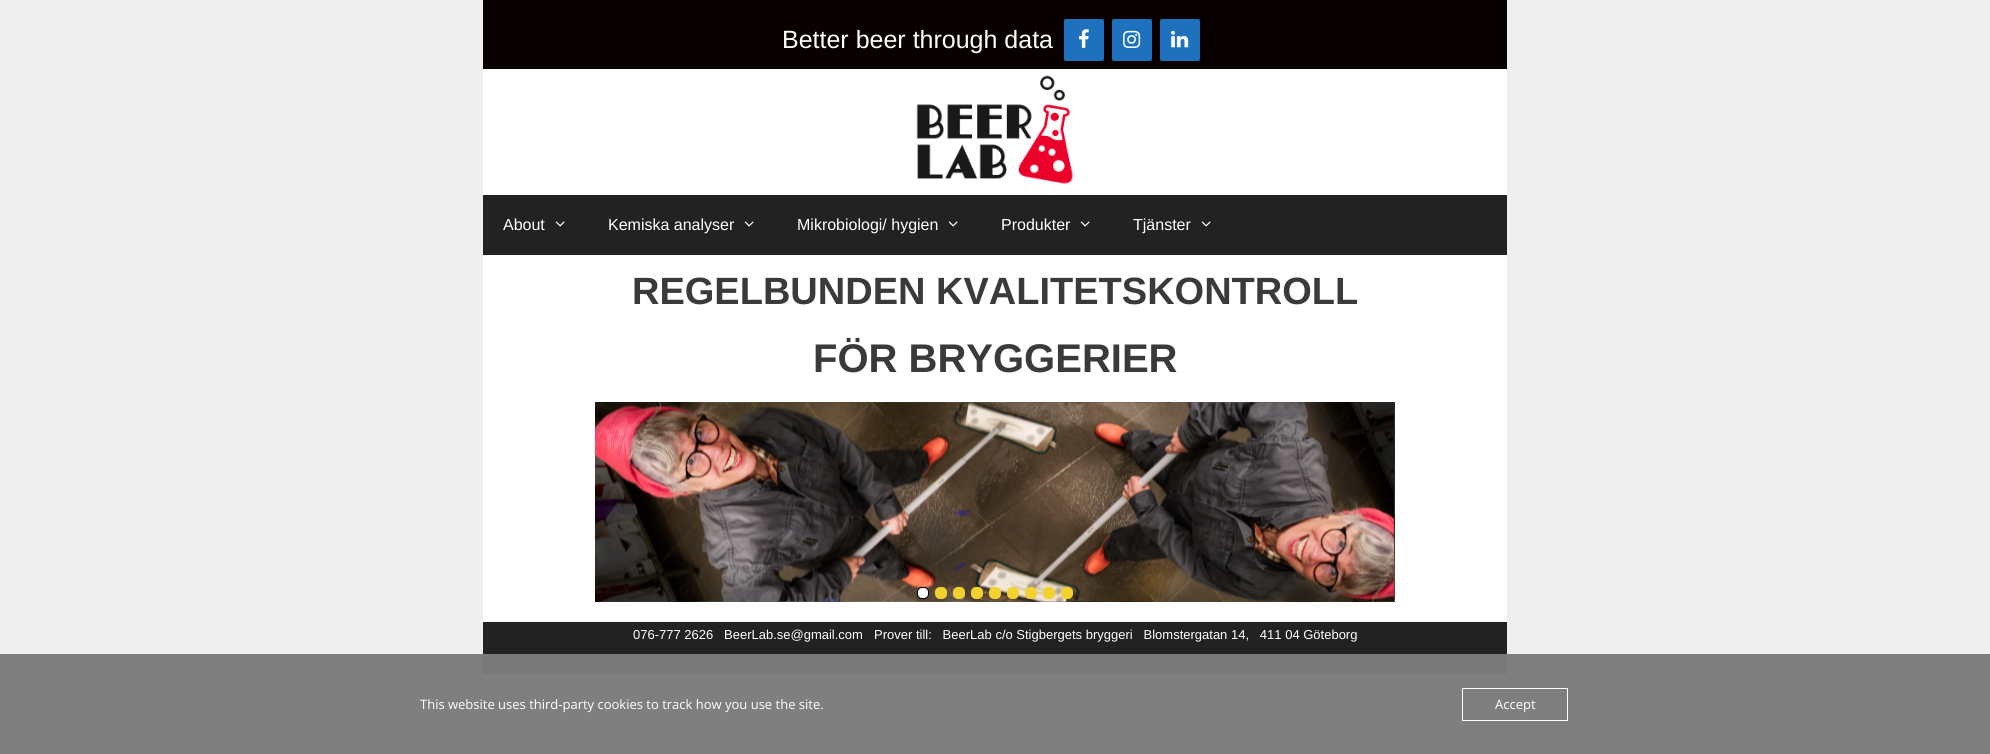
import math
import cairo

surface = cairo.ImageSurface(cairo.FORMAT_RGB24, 1990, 754)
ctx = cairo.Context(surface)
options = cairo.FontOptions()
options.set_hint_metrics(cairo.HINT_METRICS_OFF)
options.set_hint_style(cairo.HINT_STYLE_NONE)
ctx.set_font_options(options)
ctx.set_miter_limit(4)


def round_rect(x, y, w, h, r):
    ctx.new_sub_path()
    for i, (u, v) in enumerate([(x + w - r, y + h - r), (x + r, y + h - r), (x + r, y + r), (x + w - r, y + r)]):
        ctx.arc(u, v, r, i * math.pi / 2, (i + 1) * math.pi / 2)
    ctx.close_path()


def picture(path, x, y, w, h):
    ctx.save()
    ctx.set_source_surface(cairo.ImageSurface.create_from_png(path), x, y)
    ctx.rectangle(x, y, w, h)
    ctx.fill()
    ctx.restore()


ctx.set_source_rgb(0.937, 0.937, 0.937)
ctx.paint()
ctx.set_source_rgb(0.498, 0.498, 0.498)
ctx.rectangle(0, 654, 1990, 100)
ctx.fill()
ctx.set_source_rgb(0.039, 0, 0)
ctx.rectangle(483, 0, 1024, 69)
ctx.fill()
ctx.select_font_face("Liberation Sans")
ctx.set_font_size(25)
ctx.set_source_rgb(1, 1, 1)
ctx.move_to(782, 48)
ctx.show_text("Better beer through data")
ctx.set_source_rgb(0.118, 0.447, 0.741)
round_rect(1064, 19, 40, 42, 2)
ctx.fill()
picture("img1.png", 1079, 29, 10, 19)
round_rect(1112, 19, 40, 42, 2)
ctx.fill()
picture("img2.png", 1123, 30, 18, 18)
round_rect(1160, 19, 40, 42, 2)
ctx.fill()
picture("img3.png", 1171, 30, 18, 18)
ctx.set_source_rgb(1, 1, 1)
ctx.rectangle(483, 69, 1024, 126)
ctx.fill()
picture("img4.png", 916, 75, 157, 109)
ctx.set_source_rgb(0.133, 0.133, 0.133)
ctx.rectangle(483, 195, 1024, 60)
ctx.fill()
ctx.set_font_size(16)
ctx.set_source_rgb(1, 1, 1)
ctx.move_to(503, 230)
ctx.show_text("About")
picture("img5.png", 555, 221, 10, 6)
ctx.move_to(608, 230)
ctx.show_text("Kemiska analyser")
picture("img5.png", 744, 221, 10, 6)
ctx.move_to(797, 230)
ctx.show_text("Mikrobiologi/ hygien")
picture("img5.png", 948, 221, 10, 6)
ctx.move_to(1001, 230)
ctx.show_text("Produkter")
picture("img5.png", 1080, 221, 10, 6)
ctx.move_to(1133, 230)
ctx.show_text("Tjänster")
picture("img5.png", 1201, 221, 10, 6)
ctx.rectangle(483, 255, 1024, 367)
ctx.fill()
ctx.select_font_face("Liberation Sans", cairo.FONT_SLANT_NORMAL, cairo.FONT_WEIGHT_BOLD)
ctx.set_font_size(38)
ctx.set_source_rgb(0.227, 0.227, 0.227)
ctx.move_to(632, 304)
ctx.show_text("REGELBUNDEN KVALITETSKONTROLL")
ctx.set_font_size(40)
ctx.move_to(813, 372)
ctx.show_text("FÖR BRYGGERIER")
picture("img6.png", 595, 402, 800, 200)
ctx.set_source_rgb(1, 1, 1)
round_rect(917.5, 587.5, 11, 11, 4.5)
ctx.fill_preserve()
ctx.set_source_rgb(0, 0, 0)
ctx.set_line_width(1)
ctx.stroke()
ctx.set_source_rgb(0.949, 0.824, 0.18)
round_rect(935, 587, 12, 12, 5)
ctx.fill()
round_rect(953, 587, 12, 12, 5)
ctx.fill()
round_rect(971, 587, 12, 12, 5)
ctx.fill()
round_rect(989, 587, 12, 12, 5)
ctx.fill()
round_rect(1007, 587, 12, 12, 5)
ctx.fill()
round_rect(1025, 587, 12, 12, 5)
ctx.fill()
round_rect(1043, 587, 12, 12, 5)
ctx.fill()
round_rect(1061, 587, 12, 12, 5)
ctx.fill()
ctx.set_source_rgb(0.133, 0.133, 0.133)
ctx.rectangle(483, 622, 1024, 32)
ctx.fill()
ctx.set_source_rgb(0.475, 0.475, 0.475)
ctx.rectangle(483, 654, 1024, 20)
ctx.fill()
ctx.select_font_face("Liberation Sans")
ctx.set_font_size(13)
ctx.set_source_rgb(1, 1, 1)
ctx.move_to(633, 639)
ctx.show_text("076-777 2626")
ctx.move_to(724, 639)
ctx.show_text("BeerLab.se@gmail.com")
ctx.move_to(874, 639)
ctx.show_text("Prover till:   BeerLab c/o Stigbergets bryggeri   Blomstergatan 14,   411 04 Göteborg")
ctx.select_font_face("Open Sans")
ctx.move_to(420, 709)
ctx.show_text("This website uses third-party cookies to track how you use the site.")
ctx.rectangle(1462.5, 688.5, 105, 32)
ctx.stroke()
ctx.move_to(1495, 709)
ctx.show_text("Accept")
surface.write_to_png("page.png")
